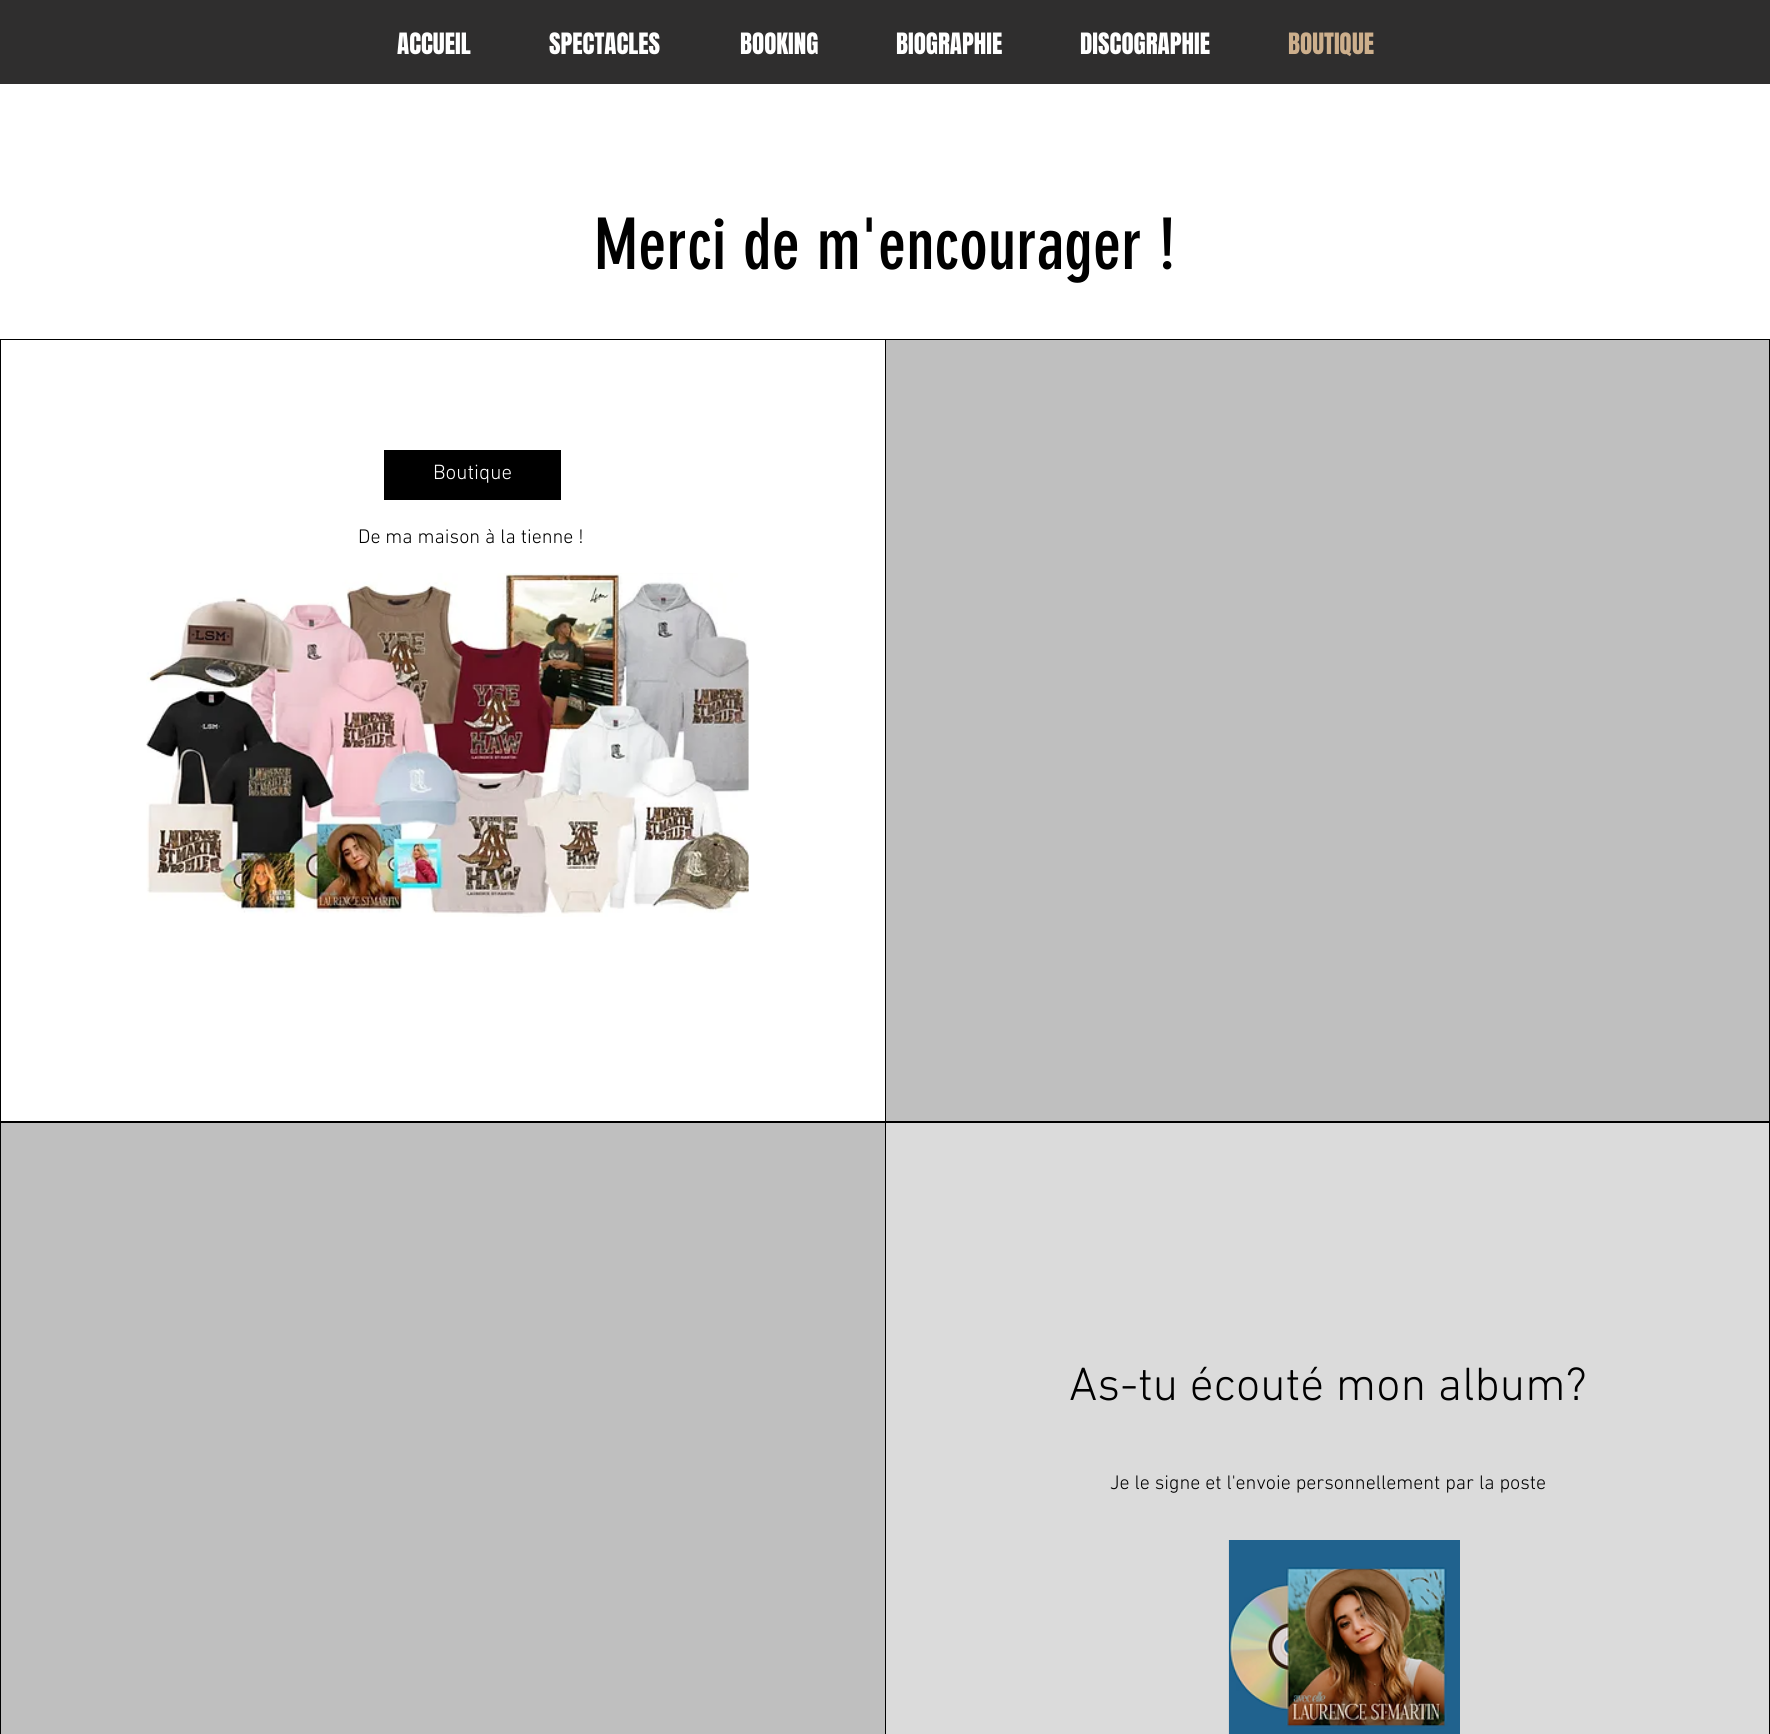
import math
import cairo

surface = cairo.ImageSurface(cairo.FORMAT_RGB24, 1770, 1734)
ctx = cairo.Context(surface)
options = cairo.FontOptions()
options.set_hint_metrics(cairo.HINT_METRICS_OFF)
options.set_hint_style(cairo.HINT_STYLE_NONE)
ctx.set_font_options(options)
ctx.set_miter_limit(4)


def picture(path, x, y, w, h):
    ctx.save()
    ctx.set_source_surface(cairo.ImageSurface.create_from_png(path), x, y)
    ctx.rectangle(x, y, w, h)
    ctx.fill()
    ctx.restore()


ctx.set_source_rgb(1, 1, 1)
ctx.paint()
ctx.set_source_rgb(0.184, 0.18, 0.18)
ctx.rectangle(0, 0, 1770, 84)
ctx.fill()
ctx.select_font_face("Anton")
ctx.set_font_size(25)
ctx.set_source_rgb(1, 1, 1)
ctx.move_to(397, 54)
ctx.show_text("ACCUEIL")
ctx.move_to(549, 54)
ctx.show_text("SPECTACLES")
ctx.move_to(740, 54)
ctx.show_text("BOOKING")
ctx.move_to(896, 54)
ctx.show_text("BIOGRAPHIE")
ctx.move_to(1080, 54)
ctx.show_text("DISCOGRAPHIE")
ctx.set_source_rgb(0.804, 0.686, 0.549)
ctx.move_to(1288, 54)
ctx.show_text("BOUTIQUE")
ctx.select_font_face("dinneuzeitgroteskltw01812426")
ctx.set_font_size(70)
ctx.set_source_rgb(0, 0, 0)
ctx.move_to(594, 269)
ctx.show_text("Merci de m'encourager !")
ctx.rectangle(0, 339, 1770, 1395)
ctx.fill()
ctx.set_source_rgb(1, 1, 1)
ctx.rectangle(1, 340, 884, 781)
ctx.fill()
ctx.set_source_rgb(0, 0, 0)
ctx.rectangle(384, 450, 177, 50)
ctx.fill()
ctx.select_font_face("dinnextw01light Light")
ctx.set_font_size(21)
ctx.set_source_rgb(1, 1, 1)
ctx.move_to(433, 479)
ctx.show_text("Boutique")
ctx.set_font_size(20)
ctx.set_source_rgb(0, 0, 0)
ctx.move_to(358, 543)
ctx.show_text("De ma maison à la tienne !")
picture("img1.png", 146, 573, 603, 344)
ctx.set_source_rgb(0.749, 0.749, 0.749)
ctx.rectangle(886, 340, 883, 781)
ctx.fill()
ctx.rectangle(1, 1123, 884, 611)
ctx.fill()
ctx.set_source_rgb(0.859, 0.859, 0.859)
ctx.rectangle(886, 1123, 883, 611)
ctx.fill()
ctx.set_font_size(47.5)
ctx.set_source_rgb(0, 0, 0)
ctx.move_to(1069, 1400)
ctx.show_text("As-tu écouté mon album?")
ctx.set_font_size(20)
ctx.move_to(1110, 1489)
ctx.show_text("Je le signe et l'envoie personnellement par la poste")
picture("img2.png", 1228, 1540, 232, 194)
surface.write_to_png("page.png")
